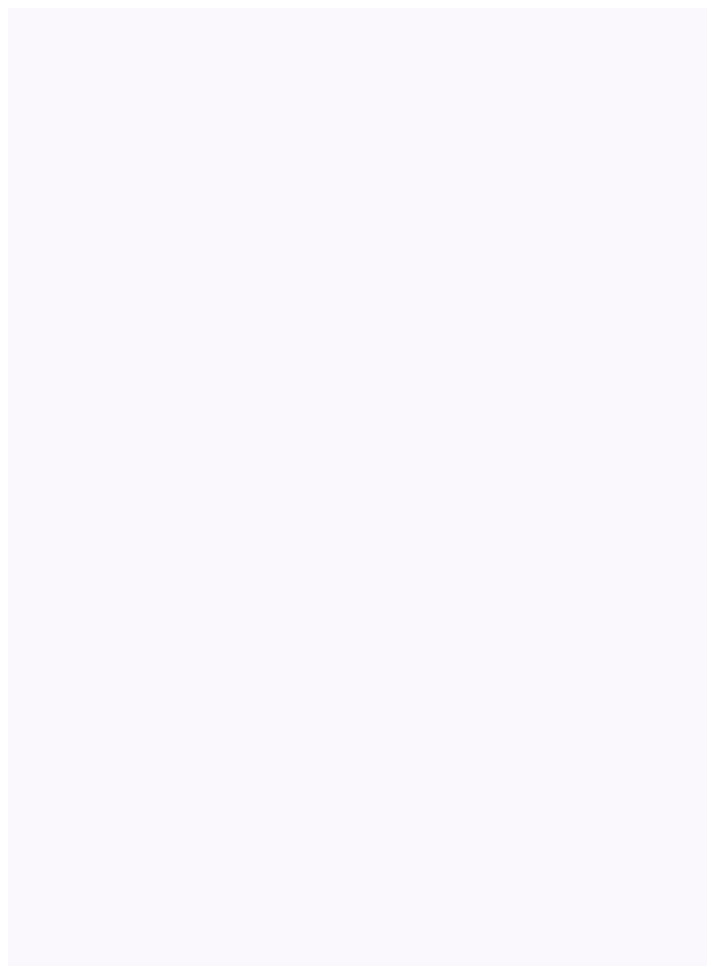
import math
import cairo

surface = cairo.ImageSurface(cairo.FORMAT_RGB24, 715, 966)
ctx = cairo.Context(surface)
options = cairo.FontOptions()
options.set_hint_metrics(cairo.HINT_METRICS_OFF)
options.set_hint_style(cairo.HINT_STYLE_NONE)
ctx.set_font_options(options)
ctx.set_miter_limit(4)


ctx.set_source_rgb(1, 1, 1)
ctx.paint()
ctx.set_source_rgb(0.98, 0.969, 0.988)
ctx.rectangle(8, 8, 699, 958)
ctx.fill()
surface.write_to_png("page.png")
